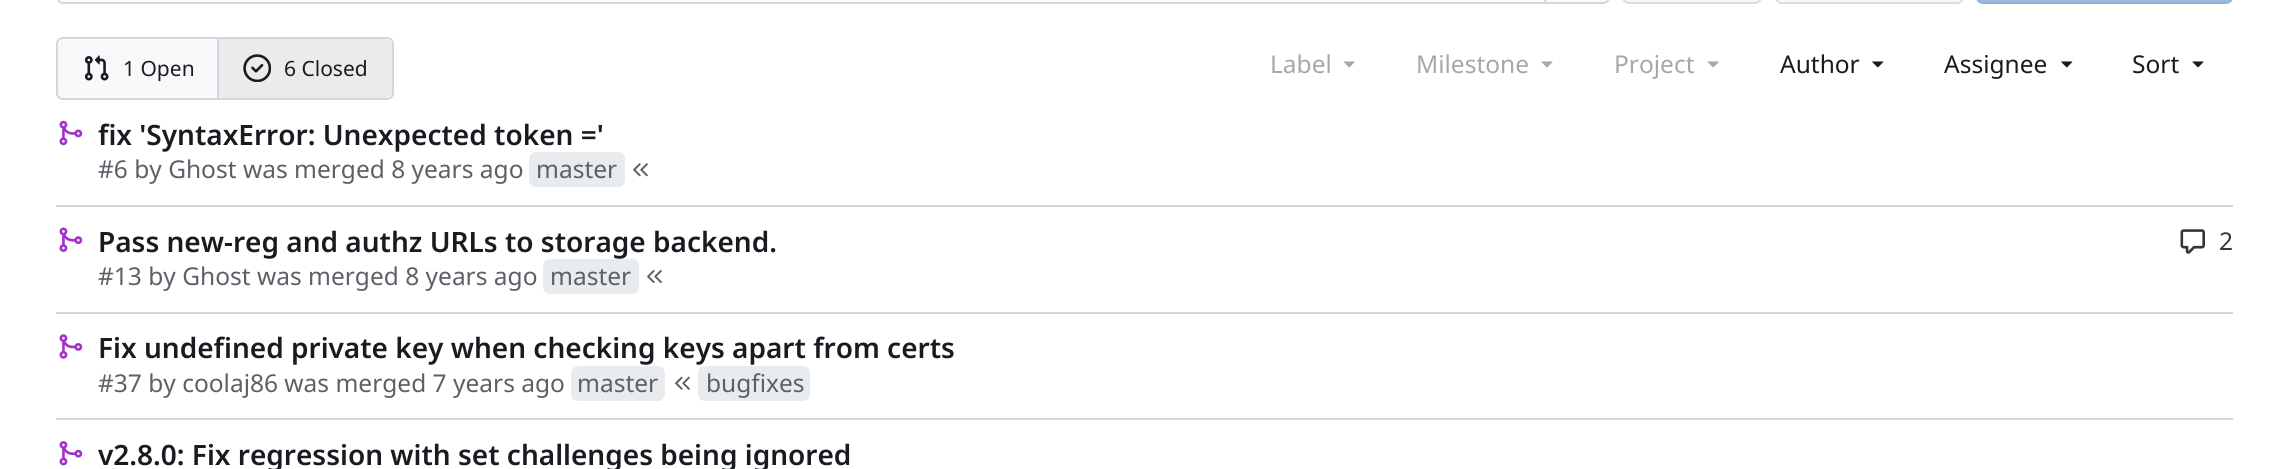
import math
import cairo

surface = cairo.ImageSurface(cairo.FORMAT_RGB24, 2289, 469)
ctx = cairo.Context(surface)
options = cairo.FontOptions()
options.set_hint_metrics(cairo.HINT_METRICS_OFF)
options.set_hint_style(cairo.HINT_STYLE_NONE)
ctx.set_font_options(options)
ctx.set_miter_limit(4)


def round_rect(x, y, w, h, r):
    ctx.new_sub_path()
    for i, (u, v) in enumerate([(x + w - r, y + h - r), (x + r, y + h - r), (x + r, y + r), (x + w - r, y + r)]):
        ctx.arc(u, v, r, i * math.pi / 2, (i + 1) * math.pi / 2)
    ctx.close_path()


def picture(path, x, y, w, h):
    ctx.save()
    ctx.set_source_surface(cairo.ImageSurface.create_from_png(path), x, y)
    ctx.rectangle(x, y, w, h)
    ctx.fill()
    ctx.restore()


ctx.set_source_rgb(1, 1, 1)
ctx.paint()
ctx.set_source_rgb(0.816, 0.843, 0.871)
ctx.set_fill_rule(cairo.FILL_RULE_EVEN_ODD)
ctx.new_path()
ctx.move_to(63, -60)
ctx.line_to(1544, -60)
ctx.line_to(1544, 4)
ctx.line_to(63, 4)
ctx.curve_to(59, 4, 56, 0, 56, -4)
ctx.line_to(56, -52)
ctx.curve_to(56, -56, 59, -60, 63, -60)
ctx.close_path()
ctx.move_to(63, -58)
ctx.line_to(1544, -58)
ctx.line_to(1544, 2)
ctx.line_to(63, 2)
ctx.curve_to(60, 2, 58, -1, 58, -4)
ctx.line_to(58, -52)
ctx.curve_to(58, -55, 60, -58, 63, -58)
ctx.close_path()
ctx.fill()
ctx.set_source_rgb(0.973, 0.976, 0.984)
ctx.new_path()
ctx.move_to(1545, -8)
ctx.line_to(1603, -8)
ctx.curve_to(1606.5, -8, 1609, -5.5, 1609, -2)
ctx.line_to(1609, -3)
ctx.curve_to(1609, 0.5, 1606.5, 3, 1603, 3)
ctx.line_to(1545, 3)
ctx.close_path()
ctx.fill_preserve()
ctx.set_source_rgb(0.816, 0.843, 0.871)
ctx.stroke()
ctx.set_source_rgb(0.973, 0.976, 0.984)
round_rect(1622, -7, 140, 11, 7)
ctx.fill()
round_rect(1623, -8, 138, 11, 6)
ctx.set_source_rgba(0, 0, 0.09, 0.11)
ctx.stroke()
ctx.set_source_rgb(0.973, 0.976, 0.984)
round_rect(1775, -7, 189, 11, 7)
ctx.fill()
round_rect(1776, -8, 187, 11, 6)
ctx.set_source_rgba(0, 0, 0.09, 0.11)
ctx.stroke()
ctx.set_source_rgb(0.592, 0.733, 0.875)
round_rect(1976, -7, 257, 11, 7)
ctx.fill()
round_rect(1977, -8, 255, 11, 6)
ctx.set_source_rgba(0.451, 0.451, 0.498, 0.11)
ctx.stroke()
round_rect(57, 38, 336, 61, 6)
ctx.set_source_rgb(0.816, 0.843, 0.871)
ctx.stroke()
ctx.set_source_rgb(0.973, 0.976, 0.984)
ctx.new_path()
ctx.move_to(65, 39)
ctx.line_to(219, 39)
ctx.line_to(219, 98)
ctx.line_to(65, 98)
ctx.curve_to(61, 98, 58, 95, 58, 91)
ctx.line_to(58, 46)
ctx.curve_to(58, 42, 61, 39, 65, 39)
ctx.close_path()
ctx.fill()
picture("img1.png", 84, 55, 25, 26)
ctx.select_font_face("Noto Sans")
ctx.set_font_size(21)
ctx.set_source_rgb(0.094, 0.11, 0.129)
ctx.move_to(123, 76)
ctx.show_text("1 Open")
ctx.set_source_rgb(0.816, 0.843, 0.871)
ctx.rectangle(217, 39, 2, 59)
ctx.fill()
ctx.set_source_rgba(0, 0, 0.09, 0.08)
ctx.new_path()
ctx.move_to(219, 39)
ctx.line_to(385, 39)
ctx.curve_to(389, 39, 392, 42, 392, 46)
ctx.line_to(392, 91)
ctx.curve_to(392, 95, 389, 98, 385, 98)
ctx.line_to(219, 98)
ctx.close_path()
ctx.fill()
picture("img2.png", 243, 54, 28, 28)
ctx.set_source_rgb(0.094, 0.11, 0.129)
ctx.move_to(284, 76)
ctx.show_text("6 Closed")
ctx.set_font_size(24.5)
ctx.set_source_rgb(0.647, 0.659, 0.671)
ctx.move_to(1270, 73)
ctx.show_text("Label")
picture("img3.png", 1343, 61, 12, 7)
ctx.move_to(1416, 73)
ctx.show_text("Milestone")
picture("img4.png", 1541, 61, 12, 7)
ctx.move_to(1614, 73)
ctx.show_text("Project")
picture("img3.png", 1707, 61, 12, 7)
ctx.set_source_rgb(0.094, 0.11, 0.129)
ctx.move_to(1780, 73)
ctx.show_text("Author")
picture("img5.png", 1872, 61, 12, 7)
ctx.move_to(1944, 73)
ctx.show_text("Assignee")
picture("img5.png", 2061, 61, 12, 7)
ctx.move_to(2132, 73)
ctx.show_text("Sort")
picture("img6.png", 2192, 61, 12, 7)
picture("img7.png", 59, 120, 24, 26)
ctx.select_font_face("Noto Sans SemiBold")
ctx.set_font_size(28)
ctx.move_to(98, 145)
ctx.show_text("fix 'SyntaxError: Unexpected token ='")
ctx.select_font_face("Noto Sans")
ctx.set_font_size(24.5)
ctx.set_source_rgb(0.357, 0.38, 0.404)
ctx.move_to(98, 178)
ctx.show_text("#6 by Ghost was merged 8 years ago")
ctx.set_source_rgb(0.91, 0.922, 0.937)
round_rect(529, 152, 96, 35, 7)
ctx.fill()
ctx.set_source_rgb(0.357, 0.38, 0.404)
ctx.move_to(536, 178)
ctx.show_text("master")
picture("img8.png", 633, 163, 15, 14)
ctx.set_source_rgb(0.816, 0.843, 0.871)
ctx.rectangle(56, 205, 2177, 2)
ctx.fill()
picture("img9.png", 59, 227, 24, 25)
ctx.select_font_face("Noto Sans SemiBold")
ctx.set_font_size(28)
ctx.set_source_rgb(0.094, 0.11, 0.129)
ctx.move_to(98, 252)
ctx.show_text("Pass new-reg and authz URLs to storage backend.")
picture("img10.png", 2180, 229, 25, 25)
ctx.select_font_face("Noto Sans")
ctx.set_font_size(24.5)
ctx.set_source_rgb(0.188, 0.212, 0.231)
ctx.move_to(2219, 250)
ctx.show_text("2")
ctx.set_source_rgb(0.357, 0.38, 0.404)
ctx.move_to(98, 285)
ctx.show_text("#13 by Ghost was merged 8 years ago")
ctx.set_source_rgb(0.91, 0.922, 0.937)
round_rect(543, 259, 96, 35, 7)
ctx.fill()
ctx.set_source_rgb(0.357, 0.38, 0.404)
ctx.move_to(550, 285)
ctx.show_text("master")
picture("img11.png", 647, 270, 15, 13)
ctx.set_source_rgb(0.816, 0.843, 0.871)
ctx.rectangle(56, 312, 2177, 2)
ctx.fill()
picture("img12.png", 59, 334, 24, 25)
ctx.select_font_face("Noto Sans SemiBold")
ctx.set_font_size(28)
ctx.set_source_rgb(0.094, 0.11, 0.129)
ctx.move_to(98, 358)
ctx.show_text("Fix undefined private key when checking keys apart from certs")
ctx.select_font_face("Noto Sans")
ctx.set_font_size(24.5)
ctx.set_source_rgb(0.357, 0.38, 0.404)
ctx.move_to(98, 392)
ctx.show_text("#37 by coolaj86 was merged 7 years ago")
ctx.set_source_rgb(0.91, 0.922, 0.937)
round_rect(571, 366, 94, 35, 7)
ctx.fill()
ctx.set_source_rgb(0.357, 0.38, 0.404)
ctx.move_to(577, 392)
ctx.show_text("master")
picture("img13.png", 675, 376, 15, 14)
ctx.set_source_rgb(0.91, 0.922, 0.937)
round_rect(698, 366, 112, 35, 7)
ctx.fill()
ctx.set_source_rgb(0.357, 0.38, 0.404)
ctx.move_to(706, 392)
ctx.show_text("bugfixes")
ctx.set_source_rgb(0.816, 0.843, 0.871)
ctx.rectangle(56, 418, 2177, 2)
ctx.fill()
picture("img14.png", 59, 441, 24, 25)
ctx.select_font_face("Noto Sans SemiBold")
ctx.set_font_size(28)
ctx.set_source_rgb(0.094, 0.11, 0.129)
ctx.move_to(98, 465)
ctx.show_text("v2.8.0: Fix regression with set challenges being ignored")
surface.write_to_png("page.png")
